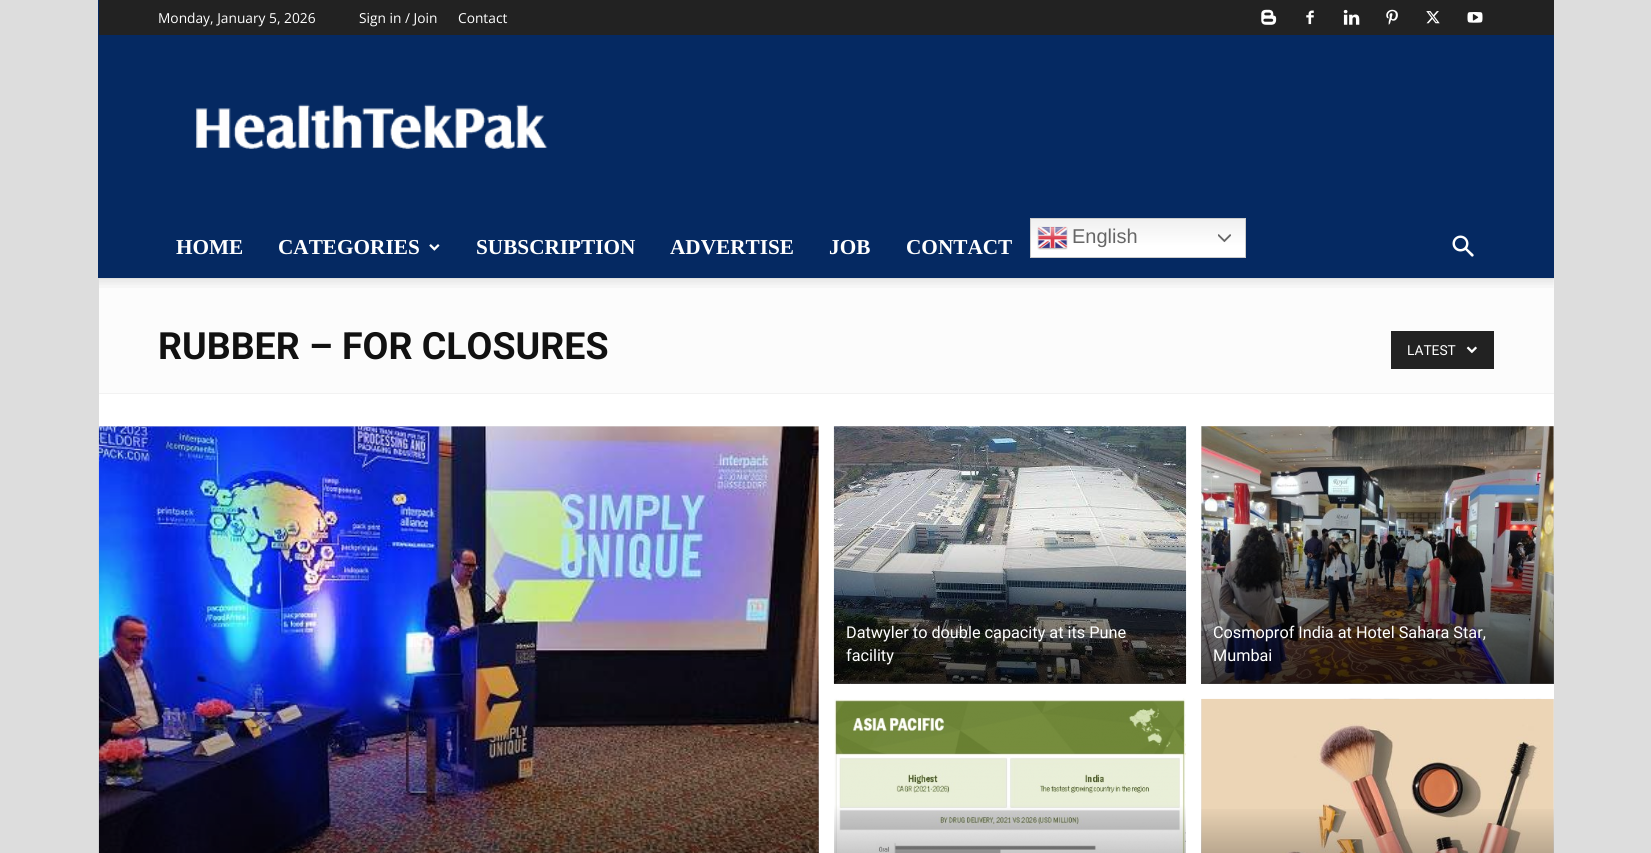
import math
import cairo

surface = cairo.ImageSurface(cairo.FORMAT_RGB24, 1651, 853)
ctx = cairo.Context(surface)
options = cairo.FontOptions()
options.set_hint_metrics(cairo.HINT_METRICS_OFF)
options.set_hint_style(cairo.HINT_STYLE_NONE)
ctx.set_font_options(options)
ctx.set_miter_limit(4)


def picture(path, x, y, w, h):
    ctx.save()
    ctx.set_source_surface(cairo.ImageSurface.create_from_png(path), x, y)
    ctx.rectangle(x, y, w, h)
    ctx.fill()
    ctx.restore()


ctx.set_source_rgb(0.867, 0.867, 0.867)
ctx.paint()
ctx.set_source_rgb(0.02, 0.161, 0.384)
ctx.rectangle(98, 0, 1456, 278)
ctx.fill()
ctx.set_source_rgb(0.133, 0.133, 0.133)
ctx.rectangle(99, 0, 1455, 35)
ctx.fill()
ctx.select_font_face("Open Sans")
ctx.set_font_size(13.75)
ctx.set_source_rgb(1, 1, 1)
ctx.move_to(158, 23)
ctx.show_text("Monday, January 5, 2026")
ctx.move_to(359, 23)
ctx.show_text("Sign in / Join")
ctx.move_to(458, 23)
ctx.show_text("Contact")
picture("img1.png", 1261, 9, 16, 16)
picture("img2.png", 1306, 10, 8, 15)
picture("img3.png", 1343, 9, 17, 16)
picture("img4.png", 1386, 9, 12, 16)
picture("img5.png", 1426, 11, 14, 13)
picture("img6.png", 1467, 12, 16, 11)
picture("img7.png", 195, 104, 353, 45)
ctx.select_font_face("Liberation Serif", cairo.FONT_SLANT_NORMAL, cairo.FONT_WEIGHT_BOLD)
ctx.set_font_size(21.25)
ctx.move_to(176, 254)
ctx.show_text("HOME")
ctx.move_to(278, 254)
ctx.show_text("CATEGORIES")
picture("img8.png", 429, 244, 11, 7)
ctx.move_to(476, 254)
ctx.show_text("SUBSCRIPTION")
ctx.move_to(670, 254)
ctx.show_text("ADVERTISE")
ctx.move_to(829, 254)
ctx.show_text("JOB")
ctx.move_to(906, 254)
ctx.show_text("CONTACT")
gradient = cairo.LinearGradient(1138, 218, 1138, 258)
gradient.add_color_stop_rgba(0, 0.937, 0.937, 0.937, 1)
gradient.add_color_stop_rgba(0.7, 1, 1, 1, 1)
ctx.set_source(gradient)
ctx.rectangle(1031, 219, 214, 38)
ctx.fill()
ctx.rectangle(1030.5, 218.5, 215, 39)
ctx.set_source_rgb(0.8, 0.8, 0.8)
ctx.set_line_width(1)
ctx.stroke()
picture("img9.png", 1037, 226, 31, 24)
ctx.select_font_face("Liberation Sans")
ctx.set_font_size(20)
ctx.set_source_rgb(0.4, 0.4, 0.4)
ctx.move_to(1072, 243)
ctx.show_text("English")
picture("img10.png", 1218, 234, 13, 9)
picture("img11.png", 1452, 235, 22, 22)
ctx.set_source_rgb(0.988, 0.988, 0.988)
ctx.rectangle(99, 279, 1455, 114)
ctx.fill()
ctx.set_source_rgb(0.949, 0.949, 0.949)
ctx.rectangle(99, 278, 1455, 1)
ctx.fill()
picture("img12.png", 99, 278, 1455, 10)
ctx.rectangle(99, 393, 1455, 1)
ctx.fill()
ctx.select_font_face("Roboto", cairo.FONT_SLANT_NORMAL, cairo.FONT_WEIGHT_BOLD)
ctx.set_font_size(37.5)
ctx.set_source_rgb(0.067, 0.067, 0.067)
ctx.move_to(158, 359)
ctx.show_text("RUBBER – FOR CLOSURES")
ctx.set_source_rgb(0.133, 0.133, 0.133)
ctx.rectangle(1391, 331, 103, 38)
ctx.fill()
ctx.select_font_face("Roboto")
ctx.set_font_size(13.75)
ctx.set_source_rgb(1, 1, 1)
ctx.move_to(1407, 355)
ctx.show_text("LATEST")
picture("img13.png", 1466, 346, 11, 8)
ctx.rectangle(99, 394, 1455, 459)
ctx.fill()
ctx.set_source_rgb(0.898, 0.898, 0.898)
ctx.rectangle(99, 426, 720, 427)
ctx.fill()
picture("img14.png", 98, 426, 721, 427)
gradient = cairo.LinearGradient(459, 426, 459, 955)
gradient.add_color_stop_rgba(0.4, 0, 0, 0, 0)
gradient.add_color_stop_rgba(1, 0, 0, 0, 0.7)
ctx.set_source(gradient)
ctx.rectangle(99, 647, 720, 206)
ctx.fill()
ctx.set_source_rgb(0.898, 0.898, 0.898)
ctx.rectangle(834, 426, 352, 258)
ctx.fill()
picture("img15.png", 833, 426, 354, 258)
gradient = cairo.LinearGradient(1010, 419, 1010, 684)
gradient.add_color_stop_rgba(0.4, 0, 0, 0, 0)
gradient.add_color_stop_rgba(1, 0, 0, 0, 0.7)
ctx.set_source(gradient)
ctx.rectangle(834, 530, 352, 154)
ctx.fill()
ctx.set_font_size(16.25)
ctx.set_source_rgb(1, 1, 1)
ctx.move_to(846, 638)
ctx.show_text("Datwyler to double capacity at its Pune")
ctx.move_to(846, 661)
ctx.show_text("facility")
ctx.set_source_rgb(0.898, 0.898, 0.898)
ctx.rectangle(1201, 426, 353, 258)
ctx.fill()
picture("img16.png", 1201, 426, 353, 258)
gradient = cairo.LinearGradient(1378, 419, 1378, 684)
gradient.add_color_stop_rgba(0.4, 0, 0, 0, 0)
gradient.add_color_stop_rgba(1, 0, 0, 0, 0.7)
ctx.set_source(gradient)
ctx.rectangle(1201, 530, 353, 154)
ctx.fill()
ctx.set_source_rgb(1, 1, 1)
ctx.move_to(1213, 638)
ctx.show_text("Cosmoprof India at Hotel Sahara Star,")
ctx.move_to(1213, 661)
ctx.show_text("Mumbai")
picture("img17.png", 834, 698, 352, 155)
ctx.set_source_rgb(0.898, 0.898, 0.898)
ctx.rectangle(1201, 699, 353, 154)
ctx.fill()
picture("img18.png", 1201, 698, 353, 155)
gradient = cairo.LinearGradient(1378, 699, 1378, 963)
gradient.add_color_stop_rgba(0.4, 0, 0, 0, 0)
gradient.add_color_stop_rgba(1, 0, 0, 0, 0.7)
ctx.set_source(gradient)
ctx.rectangle(1201, 809, 353, 44)
ctx.fill()
surface.write_to_png("page.png")
